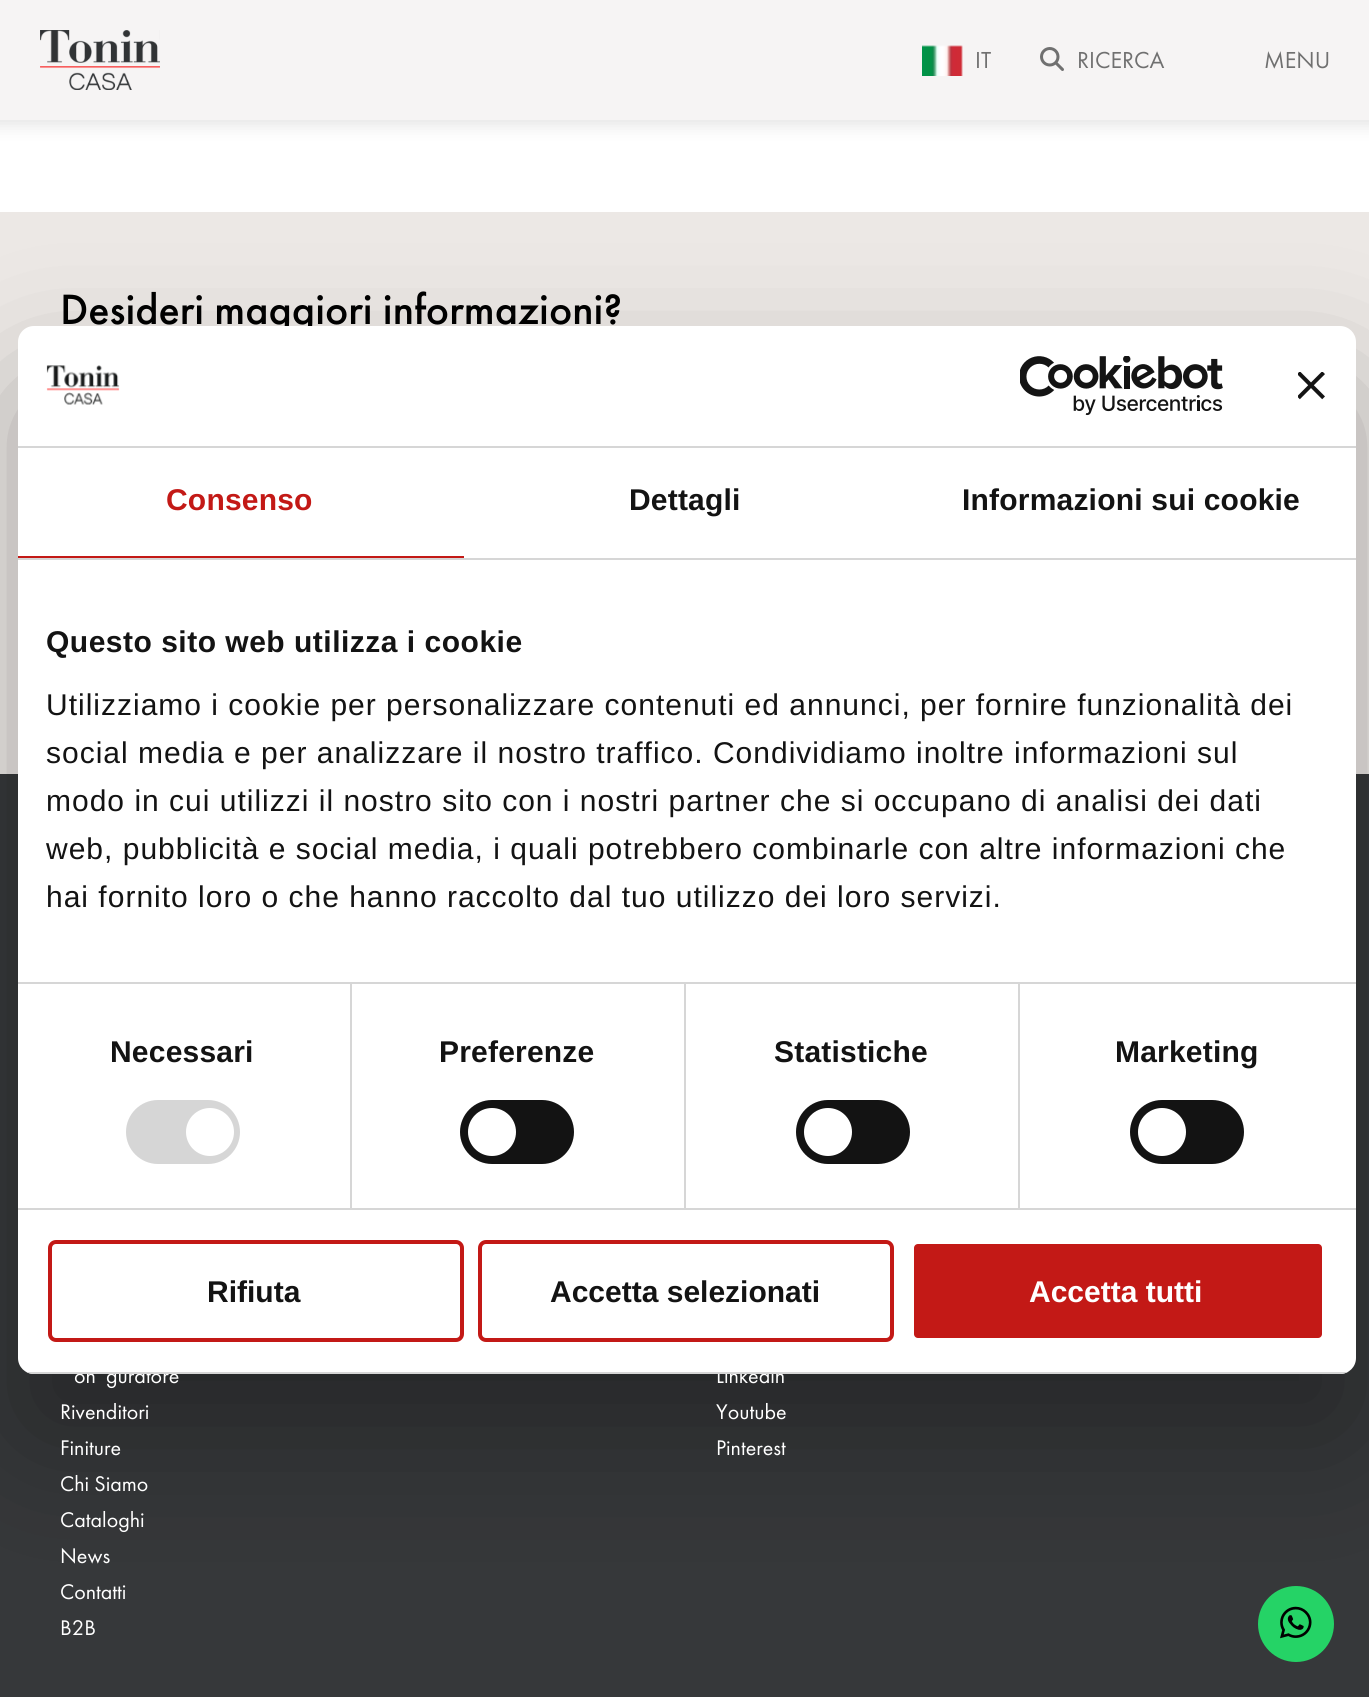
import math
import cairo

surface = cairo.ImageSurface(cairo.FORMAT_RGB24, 1369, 1697)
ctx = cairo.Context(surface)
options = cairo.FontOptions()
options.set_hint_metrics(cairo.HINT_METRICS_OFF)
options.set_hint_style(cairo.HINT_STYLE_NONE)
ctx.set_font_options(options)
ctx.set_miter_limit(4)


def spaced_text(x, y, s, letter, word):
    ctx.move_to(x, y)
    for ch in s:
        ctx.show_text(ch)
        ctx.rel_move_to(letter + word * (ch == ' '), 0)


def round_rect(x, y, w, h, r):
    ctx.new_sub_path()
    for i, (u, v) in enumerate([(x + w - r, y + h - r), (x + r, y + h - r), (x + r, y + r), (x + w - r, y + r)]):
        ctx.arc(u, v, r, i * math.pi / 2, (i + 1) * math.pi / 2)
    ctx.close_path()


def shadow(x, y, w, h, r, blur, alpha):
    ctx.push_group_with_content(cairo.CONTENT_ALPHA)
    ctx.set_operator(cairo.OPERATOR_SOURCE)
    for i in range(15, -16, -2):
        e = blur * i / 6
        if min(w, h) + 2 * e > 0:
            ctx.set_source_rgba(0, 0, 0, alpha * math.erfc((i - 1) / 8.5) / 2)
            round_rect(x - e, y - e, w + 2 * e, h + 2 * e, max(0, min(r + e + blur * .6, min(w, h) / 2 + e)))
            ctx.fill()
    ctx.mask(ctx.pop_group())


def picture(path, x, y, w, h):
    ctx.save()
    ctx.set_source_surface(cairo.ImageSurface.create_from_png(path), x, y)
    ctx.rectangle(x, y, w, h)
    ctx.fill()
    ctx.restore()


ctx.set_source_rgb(1, 1, 1)
ctx.paint()
ctx.set_source_rgb(0, 0, 0)
shadow(-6, -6, 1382, 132, 0, 8, 0.1)
ctx.set_source_rgb(0.961, 0.957, 0.957)
ctx.rectangle(0, 0, 1369, 120)
ctx.fill()
picture("img1.png", 40, 30, 120, 60)
picture("img2.png", 922, 45, 41, 31)
ctx.select_font_face("Futura PT")
ctx.set_font_size(24)
ctx.set_source_rgb(0.439, 0.439, 0.439)
ctx.move_to(975, 68)
ctx.show_text("IT")
picture("img3.png", 1040, 47, 24, 24)
ctx.move_to(1077, 68)
ctx.show_text("RICERCA")
ctx.move_to(1264, 68)
ctx.show_text("MENU")
ctx.set_source_rgb(0.925, 0.91, 0.898)
ctx.rectangle(0, 212, 1369, 562)
ctx.fill()
ctx.select_font_face("Futura PT Medium")
ctx.set_font_size(44)
ctx.set_source_rgb(0, 0, 0)
ctx.move_to(60, 324)
ctx.show_text("Desideri maggiori informazioni?")
ctx.set_source_rgb(0.212, 0.22, 0.227)
ctx.rectangle(0, 774, 1369, 923)
ctx.fill()
ctx.set_source_rgb(0.145, 0.827, 0.4)
ctx.arc(1296, 1624, 37, 0, 2 * math.pi)
ctx.fill_preserve()
ctx.stroke()
picture("img7.png", 1280, 1606, 32, 33)
ctx.set_source_rgb(0, 0, 0)
shadow(18, 390, 1338, 1048, 16, 68, 0.3)
ctx.set_source_rgb(1, 1, 1)
round_rect(18, 326, 1338, 1048, 16)
ctx.fill()
ctx.set_source_rgb(0.839, 0.839, 0.839)
ctx.rectangle(18, 446, 1338, 2)
ctx.fill()
picture("img4.png", 46, 365, 74, 40)
picture("img5.png", 1020, 356, 203, 60)
picture("img6.png", 1298, 372, 27, 28)
ctx.rectangle(18, 558, 1338, 2)
ctx.fill()
ctx.set_source_rgb(0.765, 0.098, 0.086)
ctx.rectangle(18, 556, 446, 2)
ctx.fill()
ctx.select_font_face("Liberation Sans", cairo.FONT_SLANT_NORMAL, cairo.FONT_WEIGHT_BOLD)
ctx.set_font_size(30)
spaced_text(166, 510, "Consenso", 0.2, 0)
ctx.set_source_rgb(0.078, 0.078, 0.078)
spaced_text(629, 510, "Dettagli", 0.2, 0)
spaced_text(962, 510, "Informazioni sui cookie", 0.2, 0)
ctx.set_source_rgb(0.839, 0.839, 0.839)
ctx.rectangle(18, 982, 1338, 2)
ctx.fill()
ctx.set_source_rgb(0.078, 0.078, 0.078)
spaced_text(46, 652, "Questo sito web utilizza i cookie", 0.5, 0)
ctx.select_font_face("Liberation Sans")
spaced_text(46, 715, "Utilizziamo i cookie per personalizzare contenuti ed annunci, per fornire funzionalità dei", 1, 0)
spaced_text(46, 763, "social media e per analizzare il nostro traffico. Condividiamo inoltre informazioni sul", 1, 0)
spaced_text(46, 811, "modo in cui utilizzi il nostro sito con i nostri partner che si occupano di analisi dei dati", 1, 0)
spaced_text(46, 859, "web, pubblicità e social media, i quali potrebbero combinarle con altre informazioni che", 1, 0)
spaced_text(46, 907, "hai fornito loro o che hanno raccolto dal tuo utilizzo dei loro servizi.", 1, 0)
ctx.set_source_rgb(0.839, 0.839, 0.839)
ctx.rectangle(18, 1208, 1338, 2)
ctx.fill()
ctx.rectangle(350, 984, 2, 224)
ctx.fill()
ctx.select_font_face("Liberation Sans", cairo.FONT_SLANT_NORMAL, cairo.FONT_WEIGHT_BOLD)
ctx.set_source_rgb(0.078, 0.078, 0.078)
spaced_text(110, 1062, "Necessari", 0.2, 0)
ctx.set_source_rgb(0.839, 0.839, 0.839)
round_rect(126, 1100, 114, 64, 32)
ctx.fill()
ctx.set_source_rgb(1, 1, 1)
ctx.arc(210, 1132, 24, 0, 2 * math.pi)
ctx.fill()
ctx.set_source_rgb(0.839, 0.839, 0.839)
ctx.rectangle(684, 984, 2, 224)
ctx.fill()
ctx.set_source_rgb(0.078, 0.078, 0.078)
spaced_text(439, 1062, "Preferenze", 0.2, 0)
round_rect(460, 1100, 114, 64, 32)
ctx.fill()
ctx.set_source_rgb(1, 1, 1)
ctx.arc(492, 1132, 24, 0, 2 * math.pi)
ctx.fill()
ctx.set_source_rgb(0.839, 0.839, 0.839)
ctx.rectangle(1018, 984, 2, 224)
ctx.fill()
ctx.set_source_rgb(0.078, 0.078, 0.078)
spaced_text(774, 1062, "Statistiche", 0.2, 0)
round_rect(796, 1100, 114, 64, 32)
ctx.fill()
ctx.set_source_rgb(1, 1, 1)
ctx.arc(828, 1132, 24, 0, 2 * math.pi)
ctx.fill()
ctx.set_source_rgb(0.078, 0.078, 0.078)
spaced_text(1115, 1062, "Marketing", 0.2, 0)
round_rect(1130, 1100, 114, 64, 32)
ctx.fill()
ctx.set_source_rgb(1, 1, 1)
ctx.arc(1162, 1132, 24, 0, 2 * math.pi)
ctx.fill()
ctx.select_font_face("Futura PT")
ctx.set_font_size(22)
ctx.move_to(74, 1383)
ctx.show_text("on")
ctx.move_to(106, 1383)
ctx.show_text("guratore")
ctx.move_to(716, 1383)
ctx.show_text("Linkedin")
ctx.save()
round_rect(18, 326, 1338, 1048, 16)
ctx.clip()
ctx.set_source_rgb(0.839, 0.839, 0.839)
ctx.rectangle(18, 1372, 1338, 2)
ctx.fill()
ctx.restore()
round_rect(50, 1242, 412, 98, 6)
ctx.set_source_rgb(0.765, 0.098, 0.086)
ctx.set_line_width(4)
ctx.stroke()
ctx.select_font_face("Liberation Sans", cairo.FONT_SLANT_NORMAL, cairo.FONT_WEIGHT_BOLD)
ctx.set_font_size(30)
ctx.set_source_rgb(0.078, 0.078, 0.078)
ctx.move_to(207, 1302)
ctx.show_text("Rifiuta")
round_rect(480, 1242, 412, 98, 6)
ctx.set_source_rgb(0.765, 0.098, 0.086)
ctx.stroke()
ctx.set_source_rgb(0.078, 0.078, 0.078)
ctx.move_to(550, 1302)
ctx.show_text("Accetta selezionati")
ctx.set_source_rgb(0.765, 0.098, 0.086)
round_rect(912, 1242, 412, 98, 6)
ctx.fill_preserve()
ctx.set_source_rgb(1, 1, 1)
ctx.stroke()
ctx.move_to(1029, 1302)
ctx.show_text("Accetta tutti")
ctx.select_font_face("Futura PT")
ctx.set_font_size(22)
ctx.move_to(60, 1419)
ctx.show_text("Rivenditori")
ctx.move_to(60, 1455)
ctx.show_text("Finiture")
ctx.move_to(60, 1491)
ctx.show_text("Chi Siamo")
ctx.move_to(60, 1527)
ctx.show_text("Cataloghi")
ctx.move_to(60, 1563)
ctx.show_text("News")
ctx.move_to(60, 1599)
ctx.show_text("Contatti")
ctx.move_to(60, 1635)
ctx.show_text("B2B")
ctx.move_to(716, 1419)
ctx.show_text("Youtube")
ctx.move_to(716, 1455)
ctx.show_text("Pinterest")
surface.write_to_png("page.png")
